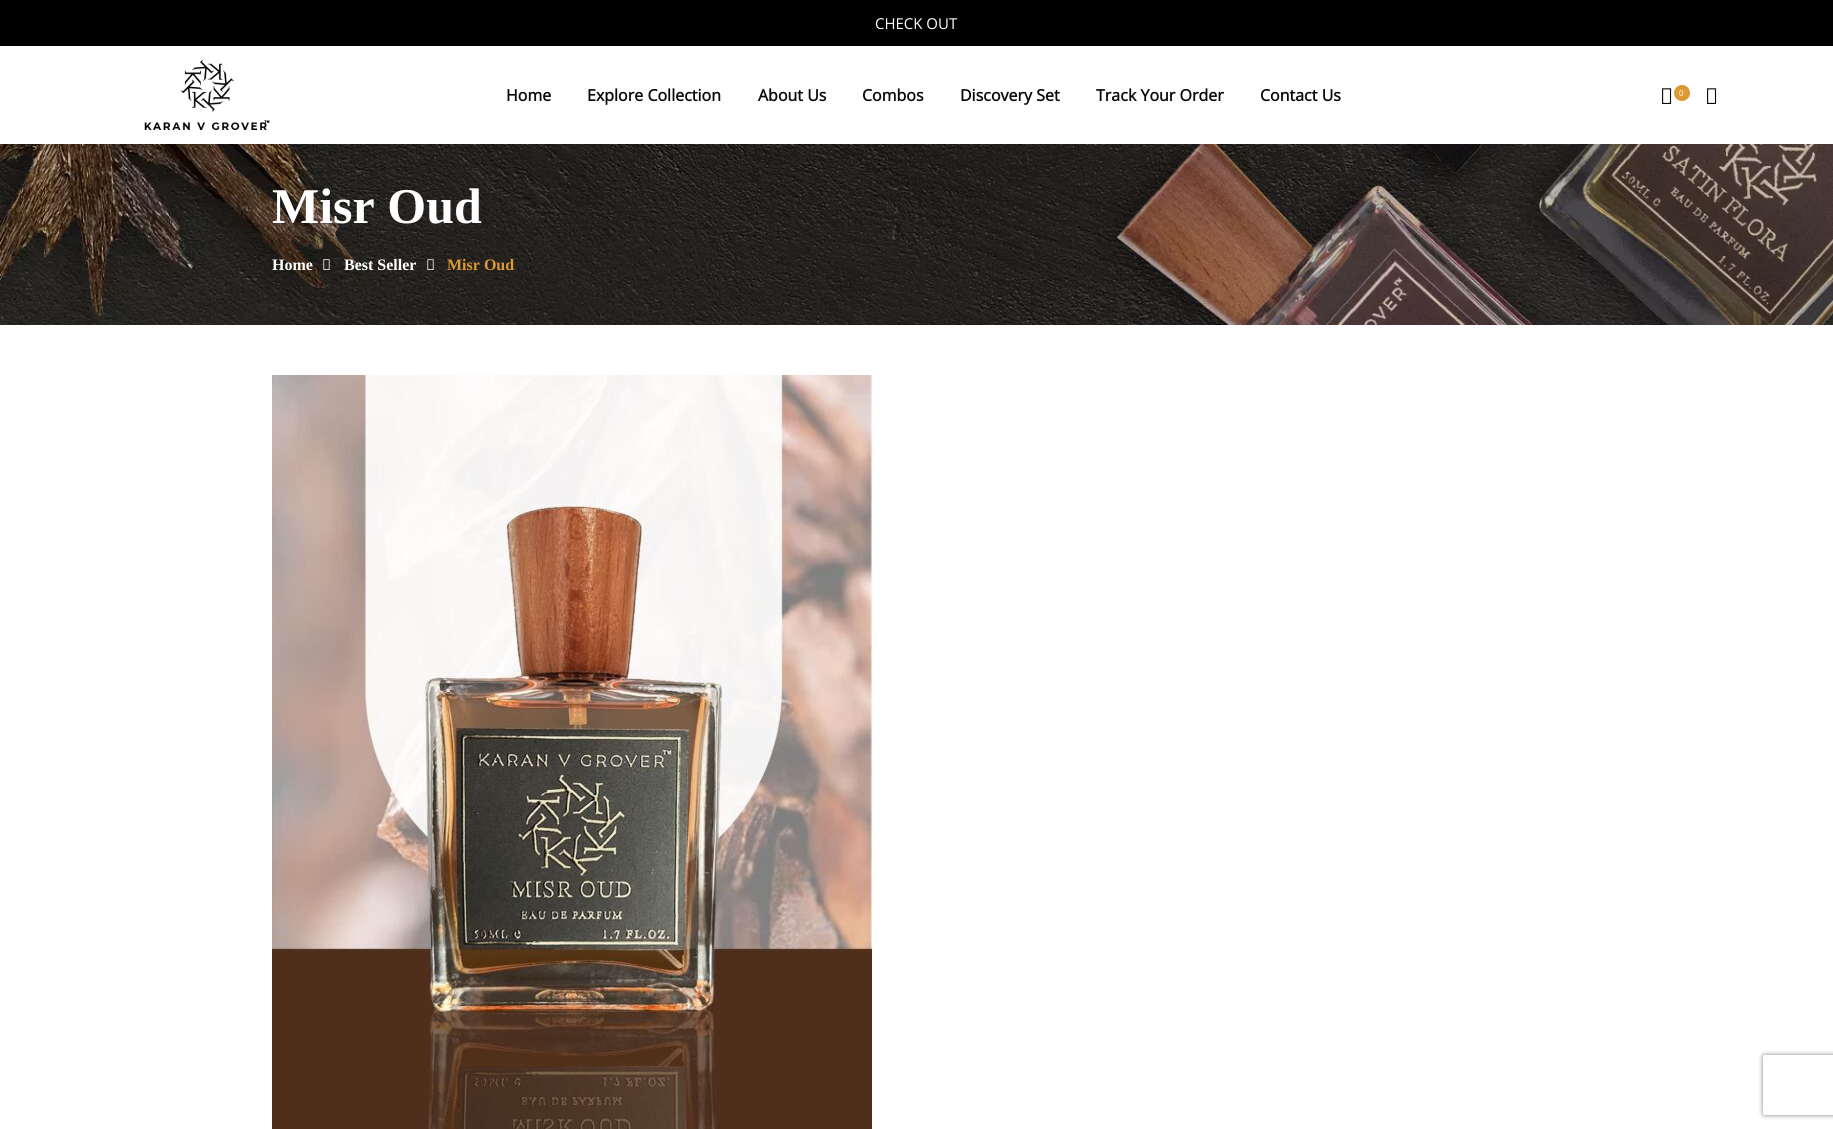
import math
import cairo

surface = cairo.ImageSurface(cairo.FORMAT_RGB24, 1833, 1129)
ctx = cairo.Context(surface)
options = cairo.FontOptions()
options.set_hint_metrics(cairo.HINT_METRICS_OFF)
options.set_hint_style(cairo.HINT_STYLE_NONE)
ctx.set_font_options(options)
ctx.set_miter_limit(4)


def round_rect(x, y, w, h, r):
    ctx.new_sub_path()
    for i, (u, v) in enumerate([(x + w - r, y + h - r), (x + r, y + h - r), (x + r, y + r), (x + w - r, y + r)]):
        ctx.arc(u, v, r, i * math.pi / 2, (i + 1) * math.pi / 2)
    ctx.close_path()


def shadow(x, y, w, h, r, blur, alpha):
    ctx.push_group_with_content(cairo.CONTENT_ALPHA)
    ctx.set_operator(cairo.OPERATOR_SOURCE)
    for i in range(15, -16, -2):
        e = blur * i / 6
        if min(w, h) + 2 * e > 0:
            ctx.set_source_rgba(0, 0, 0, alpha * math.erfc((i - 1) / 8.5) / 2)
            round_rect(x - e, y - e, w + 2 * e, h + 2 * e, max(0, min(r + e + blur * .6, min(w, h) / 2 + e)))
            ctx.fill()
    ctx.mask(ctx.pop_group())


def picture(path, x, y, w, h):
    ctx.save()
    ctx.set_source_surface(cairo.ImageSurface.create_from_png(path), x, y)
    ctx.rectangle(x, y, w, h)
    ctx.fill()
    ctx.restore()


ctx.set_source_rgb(1, 1, 1)
ctx.paint()
ctx.set_source_rgb(0, 0, 0)
ctx.rectangle(0, 0, 1833, 46)
ctx.fill()
ctx.select_font_face("Open Sans")
ctx.set_font_size(15)
ctx.set_source_rgb(1, 1, 1)
ctx.move_to(875, 29)
ctx.show_text("CHECK OUT")
picture("img1.png", 144, 60, 126, 70)
ctx.select_font_face("Open Sans", cairo.FONT_SLANT_NORMAL, cairo.FONT_WEIGHT_BOLD)
ctx.set_font_size(16)
ctx.set_source_rgb(0.039, 0.039, 0.039)
ctx.move_to(506, 101)
ctx.show_text("Home")
ctx.move_to(587, 101)
ctx.show_text("Explore Collection")
ctx.move_to(758, 101)
ctx.show_text("About Us")
ctx.move_to(862, 101)
ctx.show_text("Combos")
ctx.move_to(960, 101)
ctx.show_text("Discovery Set")
ctx.move_to(1096, 101)
ctx.show_text("Track Your Order")
ctx.move_to(1260, 101)
ctx.show_text("Contact Us")
picture("img2.png", 1662, 88, 10, 16)
ctx.set_source_rgb(0.867, 0.6, 0.2)
ctx.arc(1682, 93, 8, 0, 2 * math.pi)
ctx.fill()
ctx.select_font_face("Open Sans")
ctx.set_font_size(8)
ctx.set_source_rgb(1, 1, 1)
ctx.move_to(1679, 96)
ctx.show_text("0")
picture("img2.png", 1707, 88, 10, 16)
picture("img3.png", 0, 144, 1833, 181)
ctx.select_font_face("Liberation Serif", cairo.FONT_SLANT_NORMAL, cairo.FONT_WEIGHT_BOLD)
ctx.set_font_size(50)
ctx.move_to(272, 223)
ctx.show_text("Misr Oud")
ctx.set_font_size(16)
ctx.move_to(272, 270)
ctx.show_text("Home")
picture("img4.png", 323, 259, 7, 11)
ctx.move_to(344, 270)
ctx.show_text("Best Seller")
picture("img5.png", 427, 259, 7, 11)
ctx.set_source_rgb(0.867, 0.6, 0.2)
ctx.move_to(447, 270)
ctx.show_text("Misr Oud")
picture("img6.png", 272, 375, 600, 754)
ctx.save()
ctx.set_fill_rule(cairo.FILL_RULE_EVEN_ODD)
ctx.new_path()
ctx.move_to(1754, 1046)
ctx.line_to(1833, 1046)
ctx.line_to(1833, 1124)
ctx.line_to(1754, 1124)
ctx.close_path()
ctx.move_to(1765, 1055)
ctx.line_to(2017, 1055)
ctx.curve_to(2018, 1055, 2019, 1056, 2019, 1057)
ctx.line_to(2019, 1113)
ctx.curve_to(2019, 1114, 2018, 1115, 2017, 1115)
ctx.line_to(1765, 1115)
ctx.curve_to(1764, 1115, 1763, 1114, 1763, 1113)
ctx.line_to(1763, 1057)
ctx.curve_to(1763, 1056, 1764, 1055, 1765, 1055)
ctx.close_path()
ctx.clip()
ctx.set_source_rgb(0.502, 0.502, 0.502)
shadow(1763, 1055, 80, 60, 2, 2.5, 1)
ctx.restore()
surface.write_to_png("page.png")
